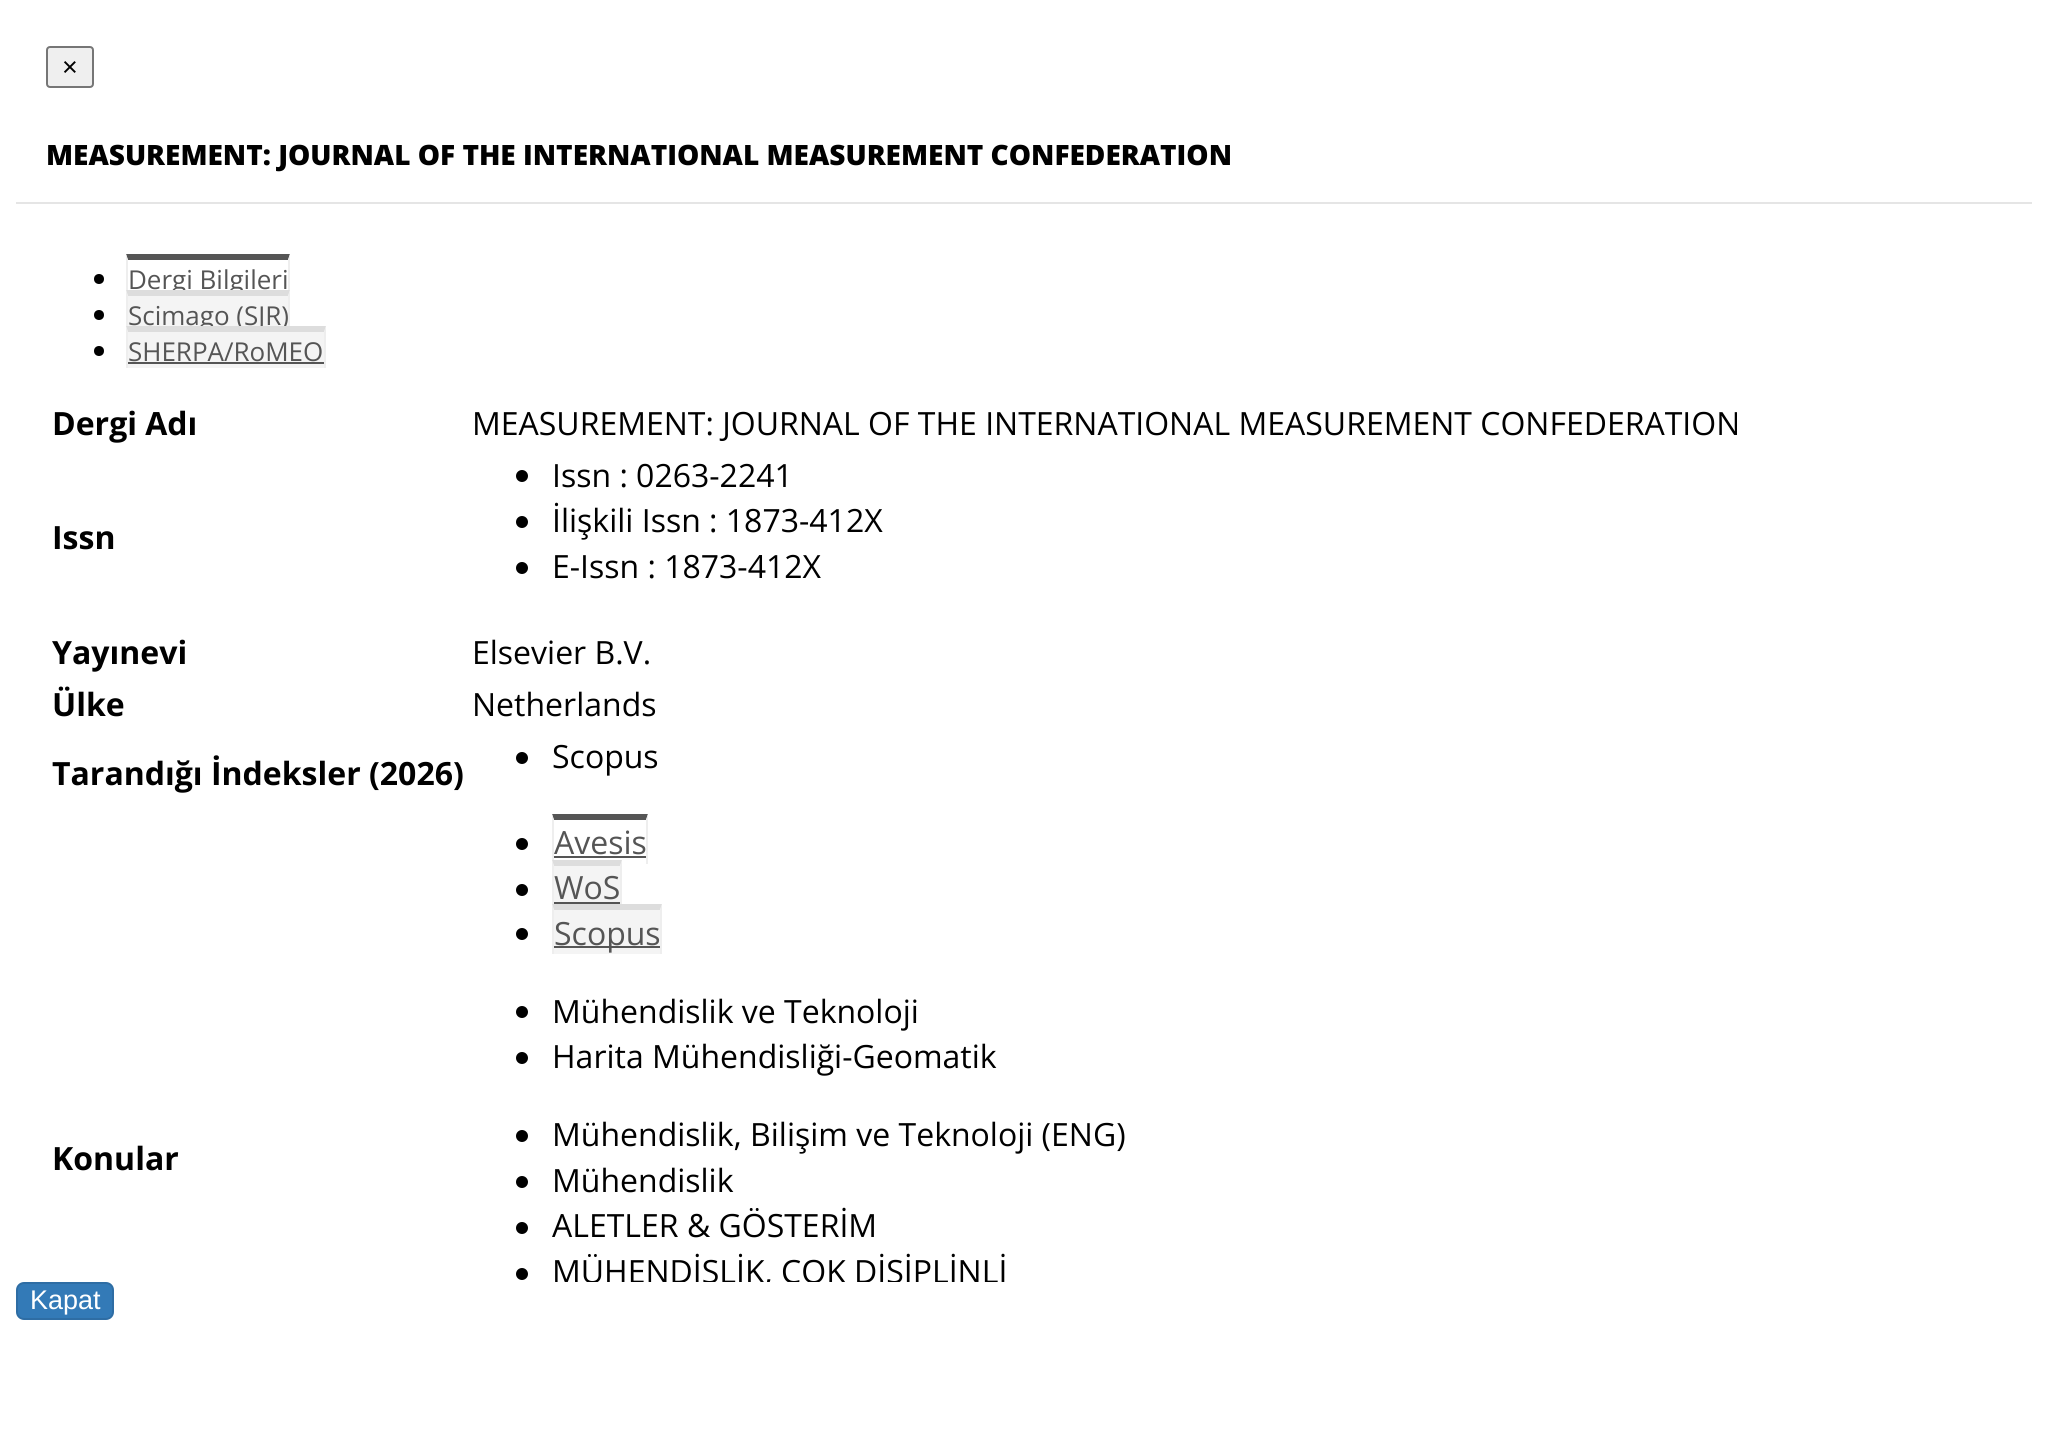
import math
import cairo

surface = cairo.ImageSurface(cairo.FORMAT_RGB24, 2047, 1451)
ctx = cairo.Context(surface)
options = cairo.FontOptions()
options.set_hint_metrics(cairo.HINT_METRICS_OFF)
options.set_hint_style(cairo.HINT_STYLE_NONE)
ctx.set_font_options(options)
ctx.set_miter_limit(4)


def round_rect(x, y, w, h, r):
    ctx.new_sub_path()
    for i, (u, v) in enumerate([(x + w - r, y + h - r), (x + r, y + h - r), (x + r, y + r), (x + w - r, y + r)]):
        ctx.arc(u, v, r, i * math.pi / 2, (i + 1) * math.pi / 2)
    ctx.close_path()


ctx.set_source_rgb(1, 1, 1)
ctx.paint()
ctx.set_source_rgb(0.898, 0.898, 0.898)
ctx.rectangle(16, 202, 2016, 2)
ctx.fill()
ctx.set_source_rgb(0.937, 0.937, 0.937)
round_rect(47, 47, 46, 40, 3)
ctx.fill_preserve()
ctx.set_source_rgb(0.463, 0.463, 0.463)
ctx.stroke()
ctx.select_font_face("Liberation Sans")
ctx.set_font_size(27)
ctx.set_source_rgb(0, 0, 0)
ctx.move_to(62, 76)
ctx.show_text("×")
ctx.select_font_face("Open Sans ExtraBold")
ctx.set_font_size(28)
ctx.move_to(46, 165)
ctx.show_text("MEASUREMENT: JOURNAL OF THE INTERNATIONAL MEASUREMENT CONFEDERATION")
ctx.new_path()
ctx.arc(99, 279, 5, 0, 2 * math.pi)
ctx.fill()
ctx.select_font_face("Open Sans")
ctx.set_font_size(26)
ctx.set_source_rgb(0.333, 0.333, 0.333)
ctx.move_to(128, 289)
ctx.show_text("Dergi Bilgileri")
ctx.new_path()
ctx.move_to(126, 254)
ctx.line_to(290, 254)
ctx.line_to(288, 260)
ctx.line_to(128, 260)
ctx.close_path()
ctx.fill()
ctx.set_source_rgb(0.933, 0.933, 0.933)
ctx.new_path()
ctx.move_to(290, 254)
ctx.line_to(290, 296)
ctx.line_to(288, 296)
ctx.line_to(288, 260)
ctx.close_path()
ctx.fill()
ctx.new_path()
ctx.move_to(126, 296)
ctx.line_to(126, 254)
ctx.line_to(128, 260)
ctx.line_to(128, 296)
ctx.close_path()
ctx.fill()
ctx.set_source_rgb(0, 0, 0)
ctx.arc(99, 315, 5, 0, 2 * math.pi)
ctx.fill()
ctx.set_source_rgb(0.957, 0.957, 0.957)
ctx.rectangle(126, 290, 164, 36)
ctx.fill()
ctx.set_source_rgb(0.333, 0.333, 0.333)
ctx.move_to(128, 325)
ctx.show_text("Scimago (SJR)")
ctx.set_source_rgb(0.867, 0.867, 0.867)
ctx.new_path()
ctx.move_to(126, 290)
ctx.line_to(290, 290)
ctx.line_to(288, 296)
ctx.line_to(128, 296)
ctx.close_path()
ctx.fill()
ctx.set_source_rgb(0.933, 0.933, 0.933)
ctx.new_path()
ctx.move_to(290, 290)
ctx.line_to(290, 332)
ctx.line_to(288, 332)
ctx.line_to(288, 296)
ctx.close_path()
ctx.fill()
ctx.new_path()
ctx.move_to(126, 332)
ctx.line_to(126, 290)
ctx.line_to(128, 296)
ctx.line_to(128, 332)
ctx.close_path()
ctx.fill()
ctx.set_source_rgb(0, 0, 0)
ctx.arc(99, 351, 5, 0, 2 * math.pi)
ctx.fill()
ctx.set_source_rgb(0.957, 0.957, 0.957)
ctx.rectangle(126, 326, 200, 42)
ctx.fill()
ctx.set_source_rgb(0.333, 0.333, 0.333)
ctx.move_to(128, 361)
ctx.show_text("SHERPA/RoMEO")
ctx.set_source_rgb(0.867, 0.867, 0.867)
ctx.new_path()
ctx.move_to(126, 326)
ctx.line_to(326, 326)
ctx.line_to(324, 332)
ctx.line_to(128, 332)
ctx.close_path()
ctx.fill()
ctx.set_source_rgb(0.933, 0.933, 0.933)
ctx.new_path()
ctx.move_to(326, 326)
ctx.line_to(326, 368)
ctx.line_to(324, 368)
ctx.line_to(324, 332)
ctx.close_path()
ctx.fill()
ctx.new_path()
ctx.move_to(126, 368)
ctx.line_to(126, 326)
ctx.line_to(128, 332)
ctx.line_to(128, 368)
ctx.close_path()
ctx.fill()
ctx.set_source_rgb(0.333, 0.333, 0.333)
ctx.rectangle(128, 362, 196, 2)
ctx.fill()
ctx.select_font_face("Open Sans", cairo.FONT_SLANT_NORMAL, cairo.FONT_WEIGHT_BOLD)
ctx.set_font_size(32)
ctx.set_source_rgb(0, 0, 0)
ctx.move_to(52, 435)
ctx.show_text("Dergi Adı")
ctx.select_font_face("Open Sans")
ctx.move_to(472, 435)
ctx.show_text("MEASUREMENT: JOURNAL OF THE INTERNATIONAL MEASUREMENT CONFEDERATION")
ctx.select_font_face("Open Sans", cairo.FONT_SLANT_NORMAL, cairo.FONT_WEIGHT_BOLD)
ctx.move_to(52, 549)
ctx.show_text("Issn")
ctx.new_path()
ctx.arc(522, 476, 6, 0, 2 * math.pi)
ctx.fill()
ctx.select_font_face("Open Sans")
ctx.move_to(552, 487)
ctx.show_text("Issn : 0263-2241")
ctx.new_path()
ctx.arc(522, 522, 6, 0, 2 * math.pi)
ctx.fill()
ctx.move_to(552, 532)
ctx.show_text("İlişkili Issn : 1873-412X")
ctx.new_path()
ctx.arc(522, 568, 6, 0, 2 * math.pi)
ctx.fill()
ctx.move_to(552, 578)
ctx.show_text("E-Issn : 1873-412X")
ctx.select_font_face("Open Sans", cairo.FONT_SLANT_NORMAL, cairo.FONT_WEIGHT_BOLD)
ctx.move_to(52, 664)
ctx.show_text("Yayınevi")
ctx.select_font_face("Open Sans")
ctx.move_to(472, 664)
ctx.show_text("Elsevier B.V.")
ctx.select_font_face("Open Sans", cairo.FONT_SLANT_NORMAL, cairo.FONT_WEIGHT_BOLD)
ctx.move_to(52, 716)
ctx.show_text("Ülke")
ctx.select_font_face("Open Sans")
ctx.move_to(472, 716)
ctx.show_text("Netherlands")
ctx.select_font_face("Open Sans", cairo.FONT_SLANT_NORMAL, cairo.FONT_WEIGHT_BOLD)
ctx.move_to(52, 785)
ctx.show_text("Tarandığı İndeksler (2026)")
ctx.new_path()
ctx.arc(522, 758, 6, 0, 2 * math.pi)
ctx.fill()
ctx.select_font_face("Open Sans")
ctx.move_to(552, 768)
ctx.show_text("Scopus")
ctx.select_font_face("Open Sans", cairo.FONT_SLANT_NORMAL, cairo.FONT_WEIGHT_BOLD)
ctx.move_to(52, 1170)
ctx.show_text("Konular")
ctx.new_path()
ctx.arc(522, 844, 6, 0, 2 * math.pi)
ctx.fill()
ctx.set_source_rgb(0.333, 0.333, 0.333)
ctx.new_path()
ctx.move_to(552, 814)
ctx.line_to(648, 814)
ctx.line_to(646, 820)
ctx.line_to(554, 820)
ctx.close_path()
ctx.fill()
ctx.set_source_rgb(0.933, 0.933, 0.933)
ctx.new_path()
ctx.move_to(552, 864)
ctx.line_to(552, 814)
ctx.line_to(554, 820)
ctx.line_to(554, 864)
ctx.close_path()
ctx.fill()
ctx.select_font_face("Open Sans")
ctx.set_source_rgb(0.333, 0.333, 0.333)
ctx.move_to(554, 854)
ctx.show_text("Avesis")
ctx.set_source_rgb(0.933, 0.933, 0.933)
ctx.new_path()
ctx.move_to(648, 814)
ctx.line_to(648, 864)
ctx.line_to(646, 864)
ctx.line_to(646, 820)
ctx.close_path()
ctx.fill()
ctx.set_source_rgb(0.333, 0.333, 0.333)
ctx.rectangle(554, 856, 92, 2)
ctx.fill()
ctx.set_source_rgb(0, 0, 0)
ctx.arc(522, 890, 6, 0, 2 * math.pi)
ctx.fill()
ctx.set_source_rgb(0.957, 0.957, 0.957)
ctx.rectangle(552, 860, 70, 42)
ctx.fill()
ctx.set_source_rgb(0.333, 0.333, 0.333)
ctx.move_to(554, 899)
ctx.show_text("WoS")
ctx.set_source_rgb(0.867, 0.867, 0.867)
ctx.new_path()
ctx.move_to(552, 860)
ctx.line_to(622, 860)
ctx.line_to(620, 866)
ctx.line_to(554, 866)
ctx.close_path()
ctx.fill()
ctx.set_source_rgb(0.933, 0.933, 0.933)
ctx.new_path()
ctx.move_to(622, 860)
ctx.line_to(622, 910)
ctx.line_to(620, 910)
ctx.line_to(620, 866)
ctx.close_path()
ctx.fill()
ctx.new_path()
ctx.move_to(552, 910)
ctx.line_to(552, 860)
ctx.line_to(554, 866)
ctx.line_to(554, 910)
ctx.close_path()
ctx.fill()
ctx.set_source_rgb(0.333, 0.333, 0.333)
ctx.rectangle(554, 902, 66, 2)
ctx.fill()
ctx.set_source_rgb(0, 0, 0)
ctx.arc(522, 934, 6, 0, 2 * math.pi)
ctx.fill()
ctx.set_source_rgb(0.957, 0.957, 0.957)
ctx.rectangle(552, 904, 110, 50)
ctx.fill()
ctx.set_source_rgb(0.333, 0.333, 0.333)
ctx.rectangle(554, 946, 106, 2)
ctx.fill()
ctx.move_to(554, 945)
ctx.show_text("Scopus")
ctx.set_source_rgb(0.867, 0.867, 0.867)
ctx.new_path()
ctx.move_to(552, 904)
ctx.line_to(662, 904)
ctx.line_to(660, 910)
ctx.line_to(554, 910)
ctx.close_path()
ctx.fill()
ctx.set_source_rgb(0.933, 0.933, 0.933)
ctx.new_path()
ctx.move_to(662, 904)
ctx.line_to(662, 954)
ctx.line_to(660, 954)
ctx.line_to(660, 910)
ctx.close_path()
ctx.fill()
ctx.new_path()
ctx.move_to(552, 954)
ctx.line_to(552, 904)
ctx.line_to(554, 910)
ctx.line_to(554, 954)
ctx.close_path()
ctx.fill()
ctx.set_source_rgb(0, 0, 0)
ctx.arc(522, 1012, 6, 0, 2 * math.pi)
ctx.fill()
ctx.move_to(552, 1023)
ctx.show_text("Mühendislik ve Teknoloji")
ctx.new_path()
ctx.arc(522, 1058, 6, 0, 2 * math.pi)
ctx.fill()
ctx.move_to(552, 1068)
ctx.show_text("Harita Mühendisliği-Geomatik")
ctx.new_path()
ctx.arc(522, 1136, 6, 0, 2 * math.pi)
ctx.fill()
ctx.move_to(552, 1146)
ctx.show_text("Mühendislik, Bilişim ve Teknoloji (ENG)")
ctx.new_path()
ctx.arc(522, 1182, 6, 0, 2 * math.pi)
ctx.fill()
ctx.move_to(552, 1192)
ctx.show_text("Mühendislik")
ctx.new_path()
ctx.arc(522, 1228, 6, 0, 2 * math.pi)
ctx.fill()
ctx.move_to(552, 1237)
ctx.show_text("ALETLER & GÖSTERİM")
ctx.new_path()
ctx.arc(522, 1274, 6, 0, 2 * math.pi)
ctx.fill()
ctx.save()
ctx.rectangle(16, 204, 2016, 1078)
ctx.clip()
ctx.move_to(552, 1283)
ctx.show_text("MÜHENDİSLİK, ÇOK DİSİPLİNLİ")
ctx.restore()
ctx.set_source_rgb(0.2, 0.478, 0.718)
round_rect(17, 1283, 96, 36, 7)
ctx.fill_preserve()
ctx.set_source_rgb(0.18, 0.427, 0.643)
ctx.stroke()
ctx.select_font_face("Liberation Sans")
ctx.set_font_size(27)
ctx.set_source_rgb(1, 1, 1)
ctx.move_to(30, 1309)
ctx.show_text("Kapat")
surface.write_to_png("page.png")
